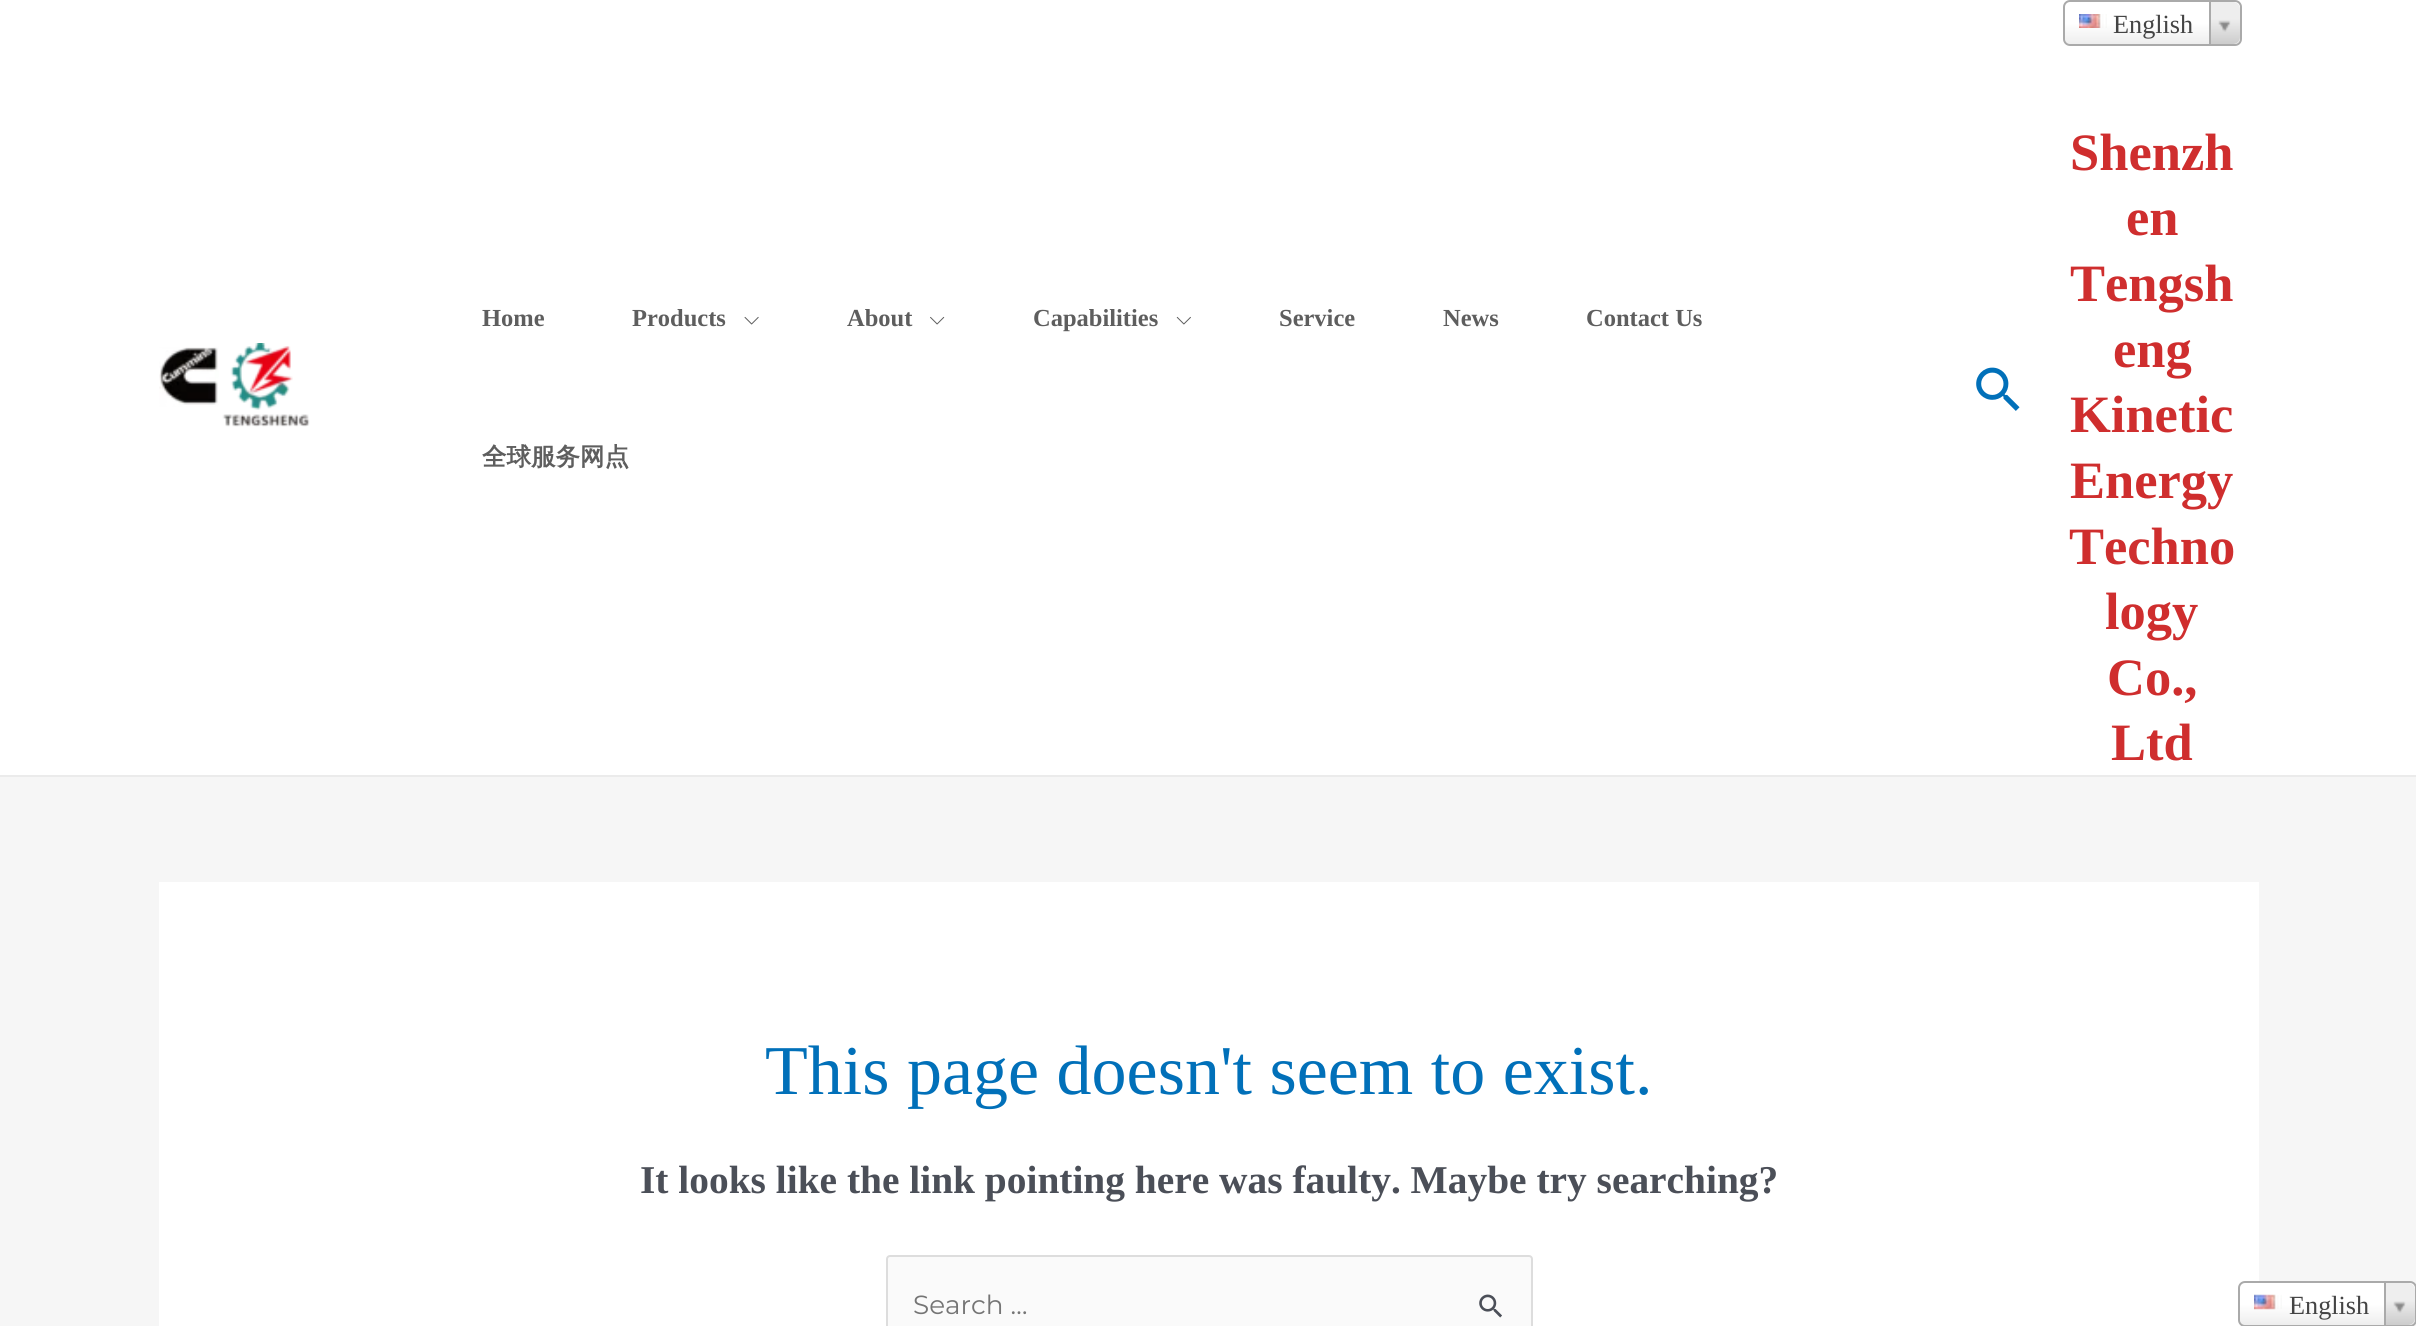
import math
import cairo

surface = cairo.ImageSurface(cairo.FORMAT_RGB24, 2416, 1326)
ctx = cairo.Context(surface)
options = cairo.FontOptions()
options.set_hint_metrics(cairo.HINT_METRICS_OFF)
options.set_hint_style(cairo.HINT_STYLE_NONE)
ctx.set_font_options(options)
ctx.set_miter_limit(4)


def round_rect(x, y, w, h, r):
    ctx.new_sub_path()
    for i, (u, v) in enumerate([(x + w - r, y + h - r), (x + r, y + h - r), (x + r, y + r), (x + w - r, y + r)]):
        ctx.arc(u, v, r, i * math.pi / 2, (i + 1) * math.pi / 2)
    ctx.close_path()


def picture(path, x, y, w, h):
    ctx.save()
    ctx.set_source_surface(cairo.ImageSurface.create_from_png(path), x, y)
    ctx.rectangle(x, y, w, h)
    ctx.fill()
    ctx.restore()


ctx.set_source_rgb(0.961, 0.961, 0.961)
ctx.paint()
ctx.set_source_rgb(1, 1, 1)
ctx.rectangle(0, 0, 2416, 775)
ctx.fill()
ctx.set_source_rgb(0.918, 0.918, 0.918)
ctx.rectangle(0, 775, 2416, 2)
ctx.fill()
picture("img1.png", 159, 343, 151, 84)
ctx.select_font_face("Liberation Serif", cairo.FONT_SLANT_NORMAL, cairo.FONT_WEIGHT_BOLD)
ctx.set_font_size(24.5)
ctx.set_source_rgb(0.369, 0.369, 0.369)
ctx.move_to(482, 326)
ctx.show_text("Home")
ctx.move_to(632, 326)
ctx.show_text("Products")
picture("img2.png", 744, 316, 15, 9)
ctx.move_to(847, 326)
ctx.show_text("About")
picture("img3.png", 930, 316, 15, 9)
ctx.move_to(1033, 326)
ctx.show_text("Capabilities")
picture("img4.png", 1176, 316, 15, 9)
ctx.move_to(1279, 326)
ctx.show_text("Service")
ctx.move_to(1443, 326)
ctx.show_text("News")
ctx.move_to(1586, 326)
ctx.show_text("Contact Us")
ctx.select_font_face("WenQuanYi Zen Hei", cairo.FONT_SLANT_NORMAL, cairo.FONT_WEIGHT_BOLD)
ctx.move_to(482, 465)
ctx.show_text("全球服务网点")
picture("img5.png", 1976, 367, 44, 44)
gradient = cairo.LinearGradient(2065, 44, 2065, 1.8)
gradient.add_color_stop_rgba(0, 0.933, 0.933, 0.933, 1)
gradient.add_color_stop_rgba(0.5, 1, 1, 1, 1)
ctx.set_source(gradient)
round_rect(2065, 2, 175, 42, 5)
ctx.fill()
round_rect(2064, 1, 177, 44, 6)
ctx.set_source_rgb(0.667, 0.667, 0.667)
ctx.stroke()
picture("img6.png", 2079, 14, 28, 14)
ctx.select_font_face("Liberation Serif")
ctx.set_font_size(26.25)
ctx.set_source_rgb(0.267, 0.267, 0.267)
ctx.move_to(2113, 33)
ctx.show_text("English")
gradient = cairo.LinearGradient(2210, 44, 2210, 1.8)
gradient.add_color_stop_rgba(0, 0.8, 0.8, 0.8, 1)
gradient.add_color_stop_rgba(0.6, 0.933, 0.933, 0.933, 1)
ctx.set_source(gradient)
ctx.new_path()
ctx.move_to(2209, 2)
ctx.line_to(2233, 2)
ctx.curve_to(2237, 2, 2240, 5, 2240, 9)
ctx.line_to(2240, 37)
ctx.curve_to(2240, 41, 2237, 44, 2233, 44)
ctx.line_to(2209, 44)
ctx.close_path()
ctx.fill()
ctx.set_source_rgb(0.667, 0.667, 0.667)
ctx.rectangle(2209, 2, 2, 42)
ctx.fill()
picture("img7.png", 2218, 20, 13, 12)
ctx.select_font_face("Liberation Serif", cairo.FONT_SLANT_NORMAL, cairo.FONT_WEIGHT_BOLD)
ctx.set_font_size(52.5)
ctx.set_source_rgb(0.812, 0.18, 0.18)
ctx.move_to(2070, 170)
ctx.show_text("Shenzh")
ctx.move_to(2126, 235)
ctx.show_text("en")
ctx.move_to(2070, 301)
ctx.show_text("Tengsh")
ctx.move_to(2113, 367)
ctx.show_text("eng")
ctx.move_to(2070, 432)
ctx.show_text("Kinetic")
ctx.move_to(2070, 498)
ctx.show_text("Energy")
ctx.move_to(2069, 564)
ctx.show_text("Techno")
ctx.move_to(2105, 629)
ctx.show_text("logy")
ctx.move_to(2107, 695)
ctx.show_text("Co.,")
ctx.move_to(2111, 760)
ctx.show_text("Ltd")
ctx.set_source_rgb(1, 1, 1)
ctx.rectangle(159, 882, 2100, 444)
ctx.fill()
ctx.select_font_face("Liberation Serif")
ctx.set_font_size(70)
ctx.set_source_rgb(0.004, 0.439, 0.725)
ctx.move_to(765, 1094)
ctx.show_text("This page doesn't seem to exist.")
ctx.select_font_face("Liberation Serif", cairo.FONT_SLANT_NORMAL, cairo.FONT_WEIGHT_BOLD)
ctx.set_font_size(39.4)
ctx.set_source_rgb(0.294, 0.31, 0.345)
ctx.move_to(640, 1193)
ctx.show_text("It looks like the link pointing here was faulty. Maybe try searching?")
ctx.set_source_rgb(0.98, 0.98, 0.98)
round_rect(887, 1256, 645, 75, 3)
ctx.fill_preserve()
ctx.set_source_rgb(0.867, 0.867, 0.867)
ctx.stroke()
ctx.select_font_face("Montserrat")
ctx.set_font_size(26.25)
ctx.set_source_rgb(0.459, 0.459, 0.459)
ctx.move_to(913, 1314)
ctx.show_text("Search …")
picture("img8.png", 1479, 1294, 23, 24)
gradient = cairo.LinearGradient(2240, 1325, 2240, 1283)
gradient.add_color_stop_rgba(0, 0.933, 0.933, 0.933, 1)
gradient.add_color_stop_rgba(0.5, 1, 1, 1, 1)
ctx.set_source(gradient)
round_rect(2240, 1283, 175, 42, 5)
ctx.fill()
round_rect(2239, 1282, 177, 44, 6)
ctx.set_source_rgb(0.667, 0.667, 0.667)
ctx.stroke()
picture("img9.png", 2254, 1294, 28, 16)
ctx.select_font_face("Liberation Serif")
ctx.set_source_rgb(0.267, 0.267, 0.267)
ctx.move_to(2289, 1314)
ctx.show_text("English")
gradient = cairo.LinearGradient(2385, 1325, 2385, 1283)
gradient.add_color_stop_rgba(0, 0.8, 0.8, 0.8, 1)
gradient.add_color_stop_rgba(0.6, 0.933, 0.933, 0.933, 1)
ctx.set_source(gradient)
ctx.new_path()
ctx.move_to(2384, 1283)
ctx.line_to(2408, 1283)
ctx.curve_to(2412, 1283, 2415, 1286, 2415, 1290)
ctx.line_to(2415, 1318)
ctx.curve_to(2415, 1322, 2412, 1325, 2408, 1325)
ctx.line_to(2384, 1325)
ctx.close_path()
ctx.fill()
ctx.set_source_rgb(0.667, 0.667, 0.667)
ctx.rectangle(2384, 1283, 2, 42)
ctx.fill()
picture("img10.png", 2393, 1301, 13, 12)
surface.write_to_png("page.png")
